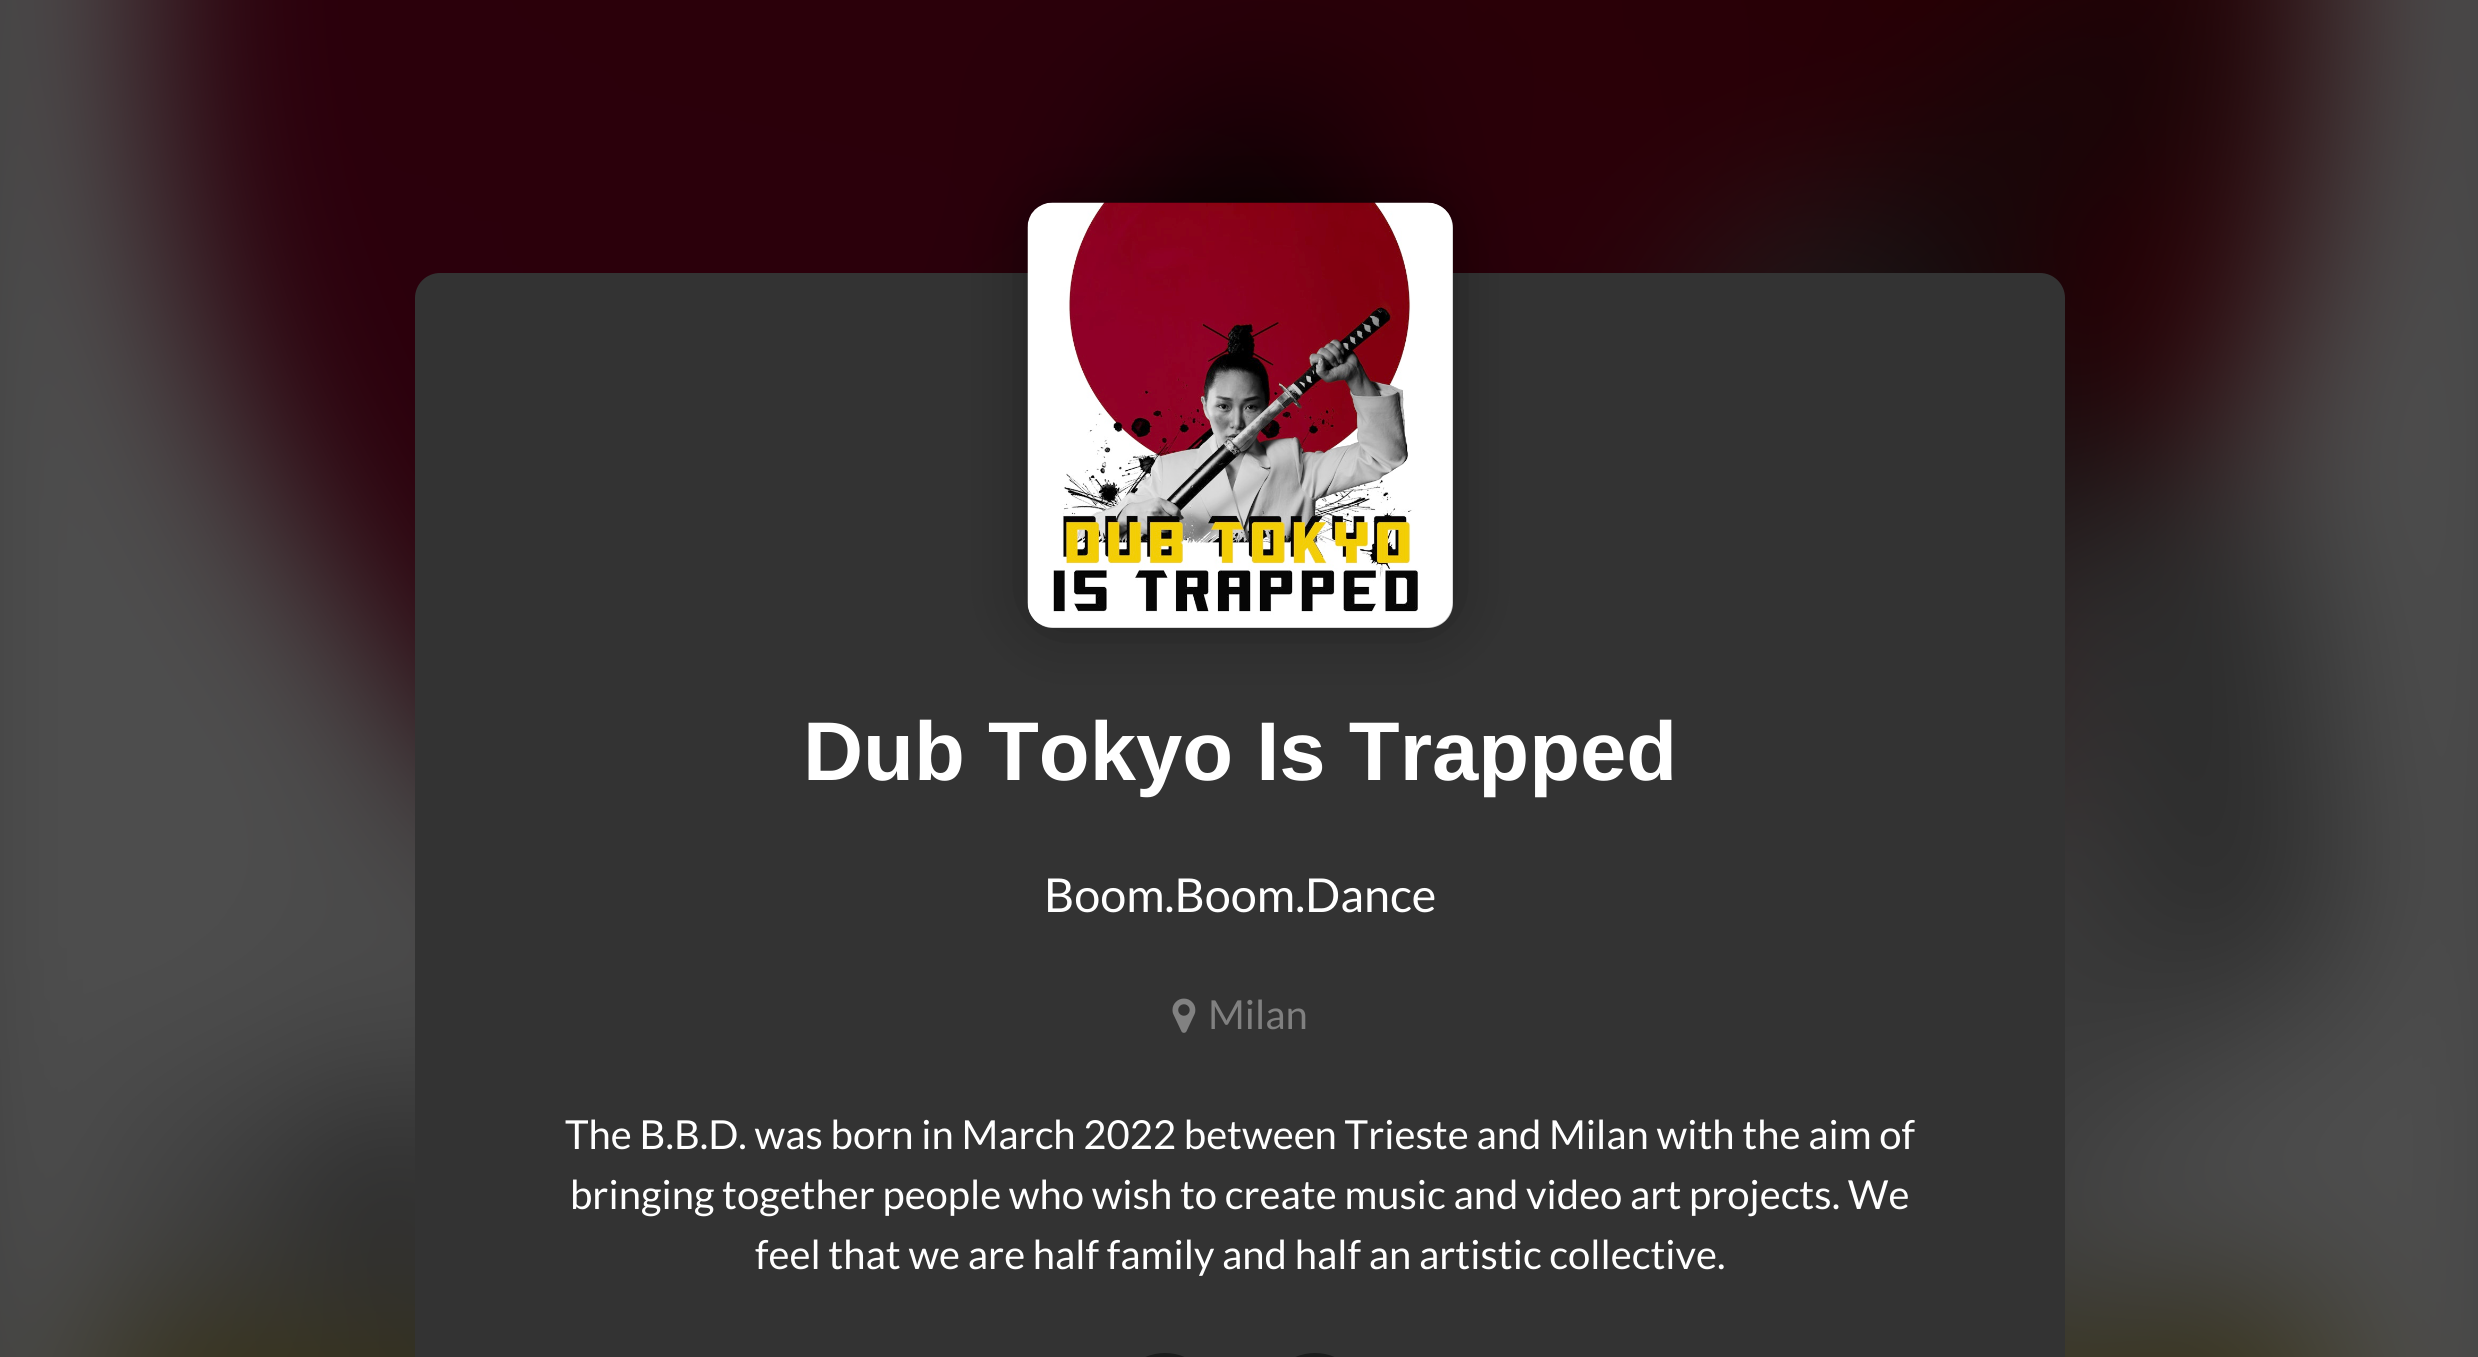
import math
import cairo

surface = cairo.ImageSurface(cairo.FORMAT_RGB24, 2478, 1357)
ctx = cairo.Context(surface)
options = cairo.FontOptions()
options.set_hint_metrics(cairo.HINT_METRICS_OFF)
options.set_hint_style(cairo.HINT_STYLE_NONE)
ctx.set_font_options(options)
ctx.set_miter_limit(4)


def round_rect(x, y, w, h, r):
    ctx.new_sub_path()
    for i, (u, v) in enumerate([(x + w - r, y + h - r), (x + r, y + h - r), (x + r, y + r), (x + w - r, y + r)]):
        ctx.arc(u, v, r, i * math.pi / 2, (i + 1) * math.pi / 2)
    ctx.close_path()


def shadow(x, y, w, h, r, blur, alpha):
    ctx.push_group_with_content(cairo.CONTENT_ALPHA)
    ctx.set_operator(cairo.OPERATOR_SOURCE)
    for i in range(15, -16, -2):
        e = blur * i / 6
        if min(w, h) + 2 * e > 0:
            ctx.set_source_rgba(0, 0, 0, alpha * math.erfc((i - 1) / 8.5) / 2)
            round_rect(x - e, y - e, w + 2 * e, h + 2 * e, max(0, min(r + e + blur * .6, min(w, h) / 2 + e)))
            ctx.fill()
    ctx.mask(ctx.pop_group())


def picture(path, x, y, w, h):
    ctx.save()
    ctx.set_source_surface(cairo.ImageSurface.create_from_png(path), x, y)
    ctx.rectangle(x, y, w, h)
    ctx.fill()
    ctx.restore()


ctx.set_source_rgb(0, 0, 0)
ctx.paint()
picture("img1.png", 0, 0, 2478, 1357)
ctx.set_source_rgb(0.2, 0.2, 0.2)
round_rect(415, 273, 1650, 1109, 25)
ctx.fill()
ctx.set_source_rgb(0, 0, 0)
shadow(1028, 203, 425, 425, 25, 31, 0.35)
ctx.set_source_rgb(0.8, 0.8, 0.8)
round_rect(1028, 203, 425, 425, 25)
ctx.fill()
picture("img2.png", 1027, 202, 426, 426)
ctx.select_font_face("Liberation Sans", cairo.FONT_SLANT_NORMAL, cairo.FONT_WEIGHT_BOLD)
ctx.set_font_size(83.25)
ctx.set_source_rgb(1, 1, 1)
ctx.move_to(803, 780)
ctx.show_text("Dub Tokyo Is Trapped")
ctx.select_font_face("Lato")
ctx.set_font_size(46.75)
ctx.move_to(1044, 912)
ctx.show_text("Boom.Boom.Dance")
picture("img3.png", 1172, 998, 24, 35)
ctx.set_font_size(40)
ctx.set_source_rgb(0.502, 0.502, 0.502)
ctx.move_to(1208, 1029)
ctx.show_text("Milan")
ctx.set_source_rgb(1, 1, 1)
ctx.move_to(565, 1149)
ctx.show_text("The B.B.D. was born in March 2022 between Trieste and Milan with the aim of")
ctx.move_to(570, 1209)
ctx.show_text("bringing together people who wish to create music and video art projects. We")
ctx.move_to(755, 1269)
ctx.show_text("feel that we are half family and half an artistic collective.")
ctx.set_source_rgb(0.11, 0.11, 0.11)
round_rect(1115, 1353, 100, 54, 50)
ctx.fill()
round_rect(1265, 1353, 100, 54, 50)
ctx.fill()
surface.write_to_png("page.png")
